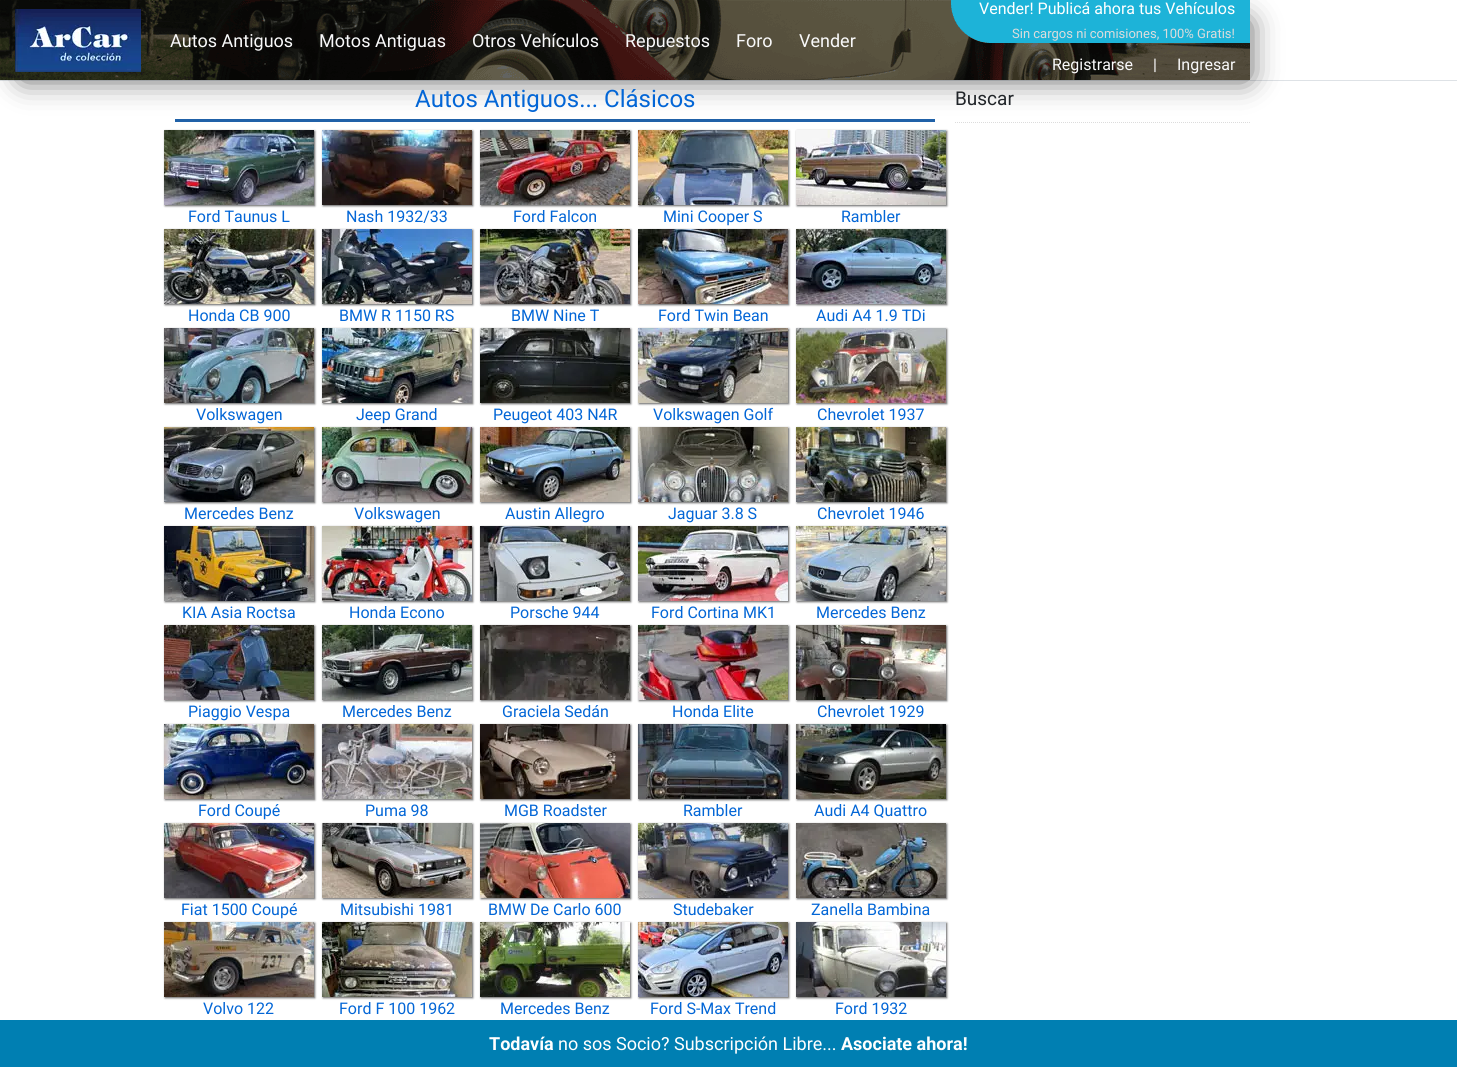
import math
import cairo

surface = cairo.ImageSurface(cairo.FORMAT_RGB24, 1457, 1067)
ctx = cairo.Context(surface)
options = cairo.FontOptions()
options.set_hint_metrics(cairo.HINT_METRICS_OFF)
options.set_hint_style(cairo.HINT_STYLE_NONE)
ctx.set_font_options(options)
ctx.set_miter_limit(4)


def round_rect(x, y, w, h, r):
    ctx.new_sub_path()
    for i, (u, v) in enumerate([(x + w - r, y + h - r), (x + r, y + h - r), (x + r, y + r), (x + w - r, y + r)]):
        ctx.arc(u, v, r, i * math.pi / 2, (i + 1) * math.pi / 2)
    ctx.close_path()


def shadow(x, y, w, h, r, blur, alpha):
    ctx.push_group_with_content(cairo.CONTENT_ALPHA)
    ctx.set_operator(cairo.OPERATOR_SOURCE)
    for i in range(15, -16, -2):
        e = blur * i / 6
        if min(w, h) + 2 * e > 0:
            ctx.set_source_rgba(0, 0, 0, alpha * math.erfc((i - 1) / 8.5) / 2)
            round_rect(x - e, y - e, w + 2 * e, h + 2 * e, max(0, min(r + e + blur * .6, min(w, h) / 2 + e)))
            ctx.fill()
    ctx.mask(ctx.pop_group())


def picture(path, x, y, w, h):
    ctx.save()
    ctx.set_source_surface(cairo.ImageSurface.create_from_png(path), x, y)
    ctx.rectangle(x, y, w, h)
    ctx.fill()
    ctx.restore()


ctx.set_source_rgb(1, 1, 1)
ctx.paint()
ctx.set_source_rgb(0.871, 0.886, 0.902)
ctx.rectangle(0, 80, 1457, 1)
ctx.fill()
ctx.set_source_rgb(0, 0, 0)
shadow(23, 23, 1224, 54, 0, 15.5, 0.75)
picture("img1.png", 0, 0, 1250, 80)
picture("img2.png", 15, 9, 126, 63)
ctx.select_font_face("Roboto")
ctx.set_font_size(18)
ctx.set_source_rgb(0.973, 0.976, 0.98)
ctx.move_to(170, 47)
ctx.show_text("Autos Antiguos")
ctx.move_to(319, 47)
ctx.show_text("Motos Antiguas")
ctx.move_to(472, 47)
ctx.show_text("Otros Vehículos")
ctx.move_to(625, 47)
ctx.show_text("Repuestos")
ctx.move_to(736, 47)
ctx.show_text("Foro")
ctx.move_to(799, 47)
ctx.show_text("Vender")
ctx.set_font_size(16)
ctx.set_source_rgb(1, 1, 1)
ctx.move_to(979, 14)
ctx.show_text("Vender! Publicá ahora tus Vehículos")
ctx.set_font_size(13)
ctx.set_source_rgb(0.863, 0.863, 0.863)
ctx.move_to(1012, 38)
ctx.show_text("Sin cargos ni comisiones, 100% Gratis!")
ctx.set_font_size(16)
ctx.set_source_rgb(0.973, 0.976, 0.98)
ctx.move_to(1052, 70)
ctx.show_text("Registrarse")
ctx.set_source_rgb(1, 1, 1)
ctx.move_to(1153, 70)
ctx.show_text("|")
ctx.set_source_rgb(0.973, 0.976, 0.98)
ctx.move_to(1177, 70)
ctx.show_text("Ingresar")
ctx.set_source_rgb(0.125, 0.38, 0.659)
ctx.rectangle(175, 119, 760, 3)
ctx.fill()
ctx.set_font_size(24)
ctx.set_source_rgb(0.012, 0.4, 0.839)
ctx.move_to(415, 107)
ctx.show_text("Autos Antiguos... Clásicos")
ctx.set_source_rgb(0.4, 0.4, 0.4)
shadow(165, 131, 150, 75, 0, 1, 1)
picture("img3.png", 164, 130, 150, 75)
ctx.set_font_size(16)
ctx.set_source_rgb(0.012, 0.4, 0.839)
ctx.move_to(188, 222)
ctx.show_text("Ford Taunus L")
ctx.set_source_rgb(0.4, 0.4, 0.4)
shadow(323, 131, 150, 75, 0, 1, 1)
picture("img4.png", 322, 130, 150, 75)
ctx.set_source_rgb(0.012, 0.4, 0.839)
ctx.move_to(346, 222)
ctx.show_text("Nash 1932/33")
ctx.set_source_rgb(0.4, 0.4, 0.4)
shadow(481, 131, 150, 75, 0, 1, 1)
picture("img5.png", 480, 130, 150, 75)
ctx.set_source_rgb(0.012, 0.4, 0.839)
ctx.move_to(513, 222)
ctx.show_text("Ford Falcon")
ctx.set_source_rgb(0.4, 0.4, 0.4)
shadow(639, 131, 150, 75, 0, 1, 1)
picture("img6.png", 638, 130, 150, 75)
ctx.set_source_rgb(0.012, 0.4, 0.839)
ctx.move_to(663, 222)
ctx.show_text("Mini Cooper S")
ctx.set_source_rgb(0.4, 0.4, 0.4)
shadow(797, 131, 150, 75, 0, 1, 1)
picture("img7.png", 796, 130, 150, 75)
ctx.set_source_rgb(0.012, 0.4, 0.839)
ctx.move_to(841, 222)
ctx.show_text("Rambler")
ctx.set_source_rgb(0.4, 0.4, 0.4)
shadow(165, 230, 150, 75, 0, 1, 1)
picture("img8.png", 164, 229, 150, 75)
ctx.set_source_rgb(0.012, 0.4, 0.839)
ctx.move_to(188, 321)
ctx.show_text("Honda CB 900")
ctx.set_source_rgb(0.4, 0.4, 0.4)
shadow(323, 230, 150, 75, 0, 1, 1)
picture("img9.png", 322, 229, 150, 75)
ctx.set_source_rgb(0.012, 0.4, 0.839)
ctx.move_to(339, 321)
ctx.show_text("BMW R 1150 RS")
ctx.set_source_rgb(0.4, 0.4, 0.4)
shadow(481, 230, 150, 75, 0, 1, 1)
picture("img10.png", 480, 229, 150, 75)
ctx.set_source_rgb(0.012, 0.4, 0.839)
ctx.move_to(511, 321)
ctx.show_text("BMW Nine T")
ctx.set_source_rgb(0.4, 0.4, 0.4)
shadow(639, 230, 150, 75, 0, 1, 1)
picture("img11.png", 638, 229, 150, 75)
ctx.set_source_rgb(0.012, 0.4, 0.839)
ctx.move_to(658, 321)
ctx.show_text("Ford Twin Bean")
ctx.set_source_rgb(0.4, 0.4, 0.4)
shadow(797, 230, 150, 75, 0, 1, 1)
picture("img12.png", 796, 229, 150, 75)
ctx.set_source_rgb(0.012, 0.4, 0.839)
ctx.move_to(816, 321)
ctx.show_text("Audi A4 1.9 TDi")
ctx.set_source_rgb(0.4, 0.4, 0.4)
shadow(165, 329, 150, 75, 0, 1, 1)
picture("img13.png", 164, 328, 150, 75)
ctx.set_source_rgb(0.012, 0.4, 0.839)
ctx.move_to(196, 420)
ctx.show_text("Volkswagen")
ctx.set_source_rgb(0.4, 0.4, 0.4)
shadow(323, 329, 150, 75, 0, 1, 1)
picture("img14.png", 322, 328, 150, 75)
ctx.set_source_rgb(0.012, 0.4, 0.839)
ctx.move_to(356, 420)
ctx.show_text("Jeep Grand")
ctx.set_source_rgb(0.4, 0.4, 0.4)
shadow(481, 329, 150, 75, 0, 1, 1)
picture("img15.png", 480, 328, 150, 75)
ctx.set_source_rgb(0.012, 0.4, 0.839)
ctx.move_to(493, 420)
ctx.show_text("Peugeot 403 N4R")
ctx.set_source_rgb(0.4, 0.4, 0.4)
shadow(639, 329, 150, 75, 0, 1, 1)
picture("img16.png", 638, 328, 150, 75)
ctx.set_source_rgb(0.012, 0.4, 0.839)
ctx.move_to(653, 420)
ctx.show_text("Volkswagen Golf")
ctx.set_source_rgb(0.4, 0.4, 0.4)
shadow(797, 329, 150, 75, 0, 1, 1)
picture("img17.png", 796, 328, 150, 75)
ctx.set_source_rgb(0.012, 0.4, 0.839)
ctx.move_to(817, 420)
ctx.show_text("Chevrolet 1937")
ctx.set_source_rgb(0.4, 0.4, 0.4)
shadow(165, 428, 150, 75, 0, 1, 1)
picture("img18.png", 164, 427, 150, 75)
ctx.set_source_rgb(0.012, 0.4, 0.839)
ctx.move_to(184, 519)
ctx.show_text("Mercedes Benz")
ctx.set_source_rgb(0.4, 0.4, 0.4)
shadow(323, 428, 150, 75, 0, 1, 1)
picture("img19.png", 322, 427, 150, 75)
ctx.set_source_rgb(0.012, 0.4, 0.839)
ctx.move_to(354, 519)
ctx.show_text("Volkswagen")
ctx.set_source_rgb(0.4, 0.4, 0.4)
shadow(481, 428, 150, 75, 0, 1, 1)
picture("img20.png", 480, 427, 150, 75)
ctx.set_source_rgb(0.012, 0.4, 0.839)
ctx.move_to(505, 519)
ctx.show_text("Austin Allegro")
ctx.set_source_rgb(0.4, 0.4, 0.4)
shadow(639, 428, 150, 75, 0, 1, 1)
picture("img21.png", 638, 427, 150, 75)
ctx.set_source_rgb(0.012, 0.4, 0.839)
ctx.move_to(668, 519)
ctx.show_text("Jaguar 3.8 S")
ctx.set_source_rgb(0.4, 0.4, 0.4)
shadow(797, 428, 150, 75, 0, 1, 1)
picture("img22.png", 796, 427, 150, 75)
ctx.set_source_rgb(0.012, 0.4, 0.839)
ctx.move_to(817, 519)
ctx.show_text("Chevrolet 1946")
ctx.set_source_rgb(0.4, 0.4, 0.4)
shadow(165, 527, 150, 75, 0, 1, 1)
picture("img23.png", 164, 526, 150, 75)
ctx.set_source_rgb(0.012, 0.4, 0.839)
ctx.move_to(182, 618)
ctx.show_text("KIA Asia Roctsa")
ctx.set_source_rgb(0.4, 0.4, 0.4)
shadow(323, 527, 150, 75, 0, 1, 1)
picture("img24.png", 322, 526, 150, 75)
ctx.set_source_rgb(0.012, 0.4, 0.839)
ctx.move_to(349, 618)
ctx.show_text("Honda Econo")
ctx.set_source_rgb(0.4, 0.4, 0.4)
shadow(481, 527, 150, 75, 0, 1, 1)
picture("img25.png", 480, 526, 150, 75)
ctx.set_source_rgb(0.012, 0.4, 0.839)
ctx.move_to(510, 618)
ctx.show_text("Porsche 944")
ctx.set_source_rgb(0.4, 0.4, 0.4)
shadow(639, 527, 150, 75, 0, 1, 1)
picture("img26.png", 638, 526, 150, 75)
ctx.set_source_rgb(0.012, 0.4, 0.839)
ctx.move_to(651, 618)
ctx.show_text("Ford Cortina MK1")
ctx.set_source_rgb(0.4, 0.4, 0.4)
shadow(797, 527, 150, 75, 0, 1, 1)
picture("img27.png", 796, 526, 150, 75)
ctx.set_source_rgb(0.012, 0.4, 0.839)
ctx.move_to(816, 618)
ctx.show_text("Mercedes Benz")
ctx.set_source_rgb(0.4, 0.4, 0.4)
shadow(165, 626, 150, 75, 0, 1, 1)
picture("img28.png", 164, 625, 150, 75)
ctx.set_source_rgb(0.012, 0.4, 0.839)
ctx.move_to(188, 717)
ctx.show_text("Piaggio Vespa")
ctx.set_source_rgb(0.4, 0.4, 0.4)
shadow(323, 626, 150, 75, 0, 1, 1)
picture("img29.png", 322, 625, 150, 75)
ctx.set_source_rgb(0.012, 0.4, 0.839)
ctx.move_to(342, 717)
ctx.show_text("Mercedes Benz")
ctx.set_source_rgb(0.4, 0.4, 0.4)
shadow(481, 626, 150, 75, 0, 1, 1)
picture("img30.png", 480, 625, 150, 75)
ctx.set_source_rgb(0.012, 0.4, 0.839)
ctx.move_to(502, 717)
ctx.show_text("Graciela Sedán")
ctx.set_source_rgb(0.4, 0.4, 0.4)
shadow(639, 626, 150, 75, 0, 1, 1)
picture("img31.png", 638, 625, 150, 75)
ctx.set_source_rgb(0.012, 0.4, 0.839)
ctx.move_to(672, 717)
ctx.show_text("Honda Elite")
ctx.set_source_rgb(0.4, 0.4, 0.4)
shadow(797, 626, 150, 75, 0, 1, 1)
picture("img32.png", 796, 625, 150, 75)
ctx.set_source_rgb(0.012, 0.4, 0.839)
ctx.move_to(817, 717)
ctx.show_text("Chevrolet 1929")
ctx.set_source_rgb(0.4, 0.4, 0.4)
shadow(165, 725, 150, 75, 0, 1, 1)
picture("img33.png", 164, 724, 150, 75)
ctx.set_source_rgb(0.012, 0.4, 0.839)
ctx.move_to(198, 816)
ctx.show_text("Ford Coupé")
ctx.set_source_rgb(0.4, 0.4, 0.4)
shadow(323, 725, 150, 75, 0, 1, 1)
picture("img34.png", 322, 724, 150, 75)
ctx.set_source_rgb(0.012, 0.4, 0.839)
ctx.move_to(365, 816)
ctx.show_text("Puma 98")
ctx.set_source_rgb(0.4, 0.4, 0.4)
shadow(481, 725, 150, 75, 0, 1, 1)
picture("img35.png", 480, 724, 150, 75)
ctx.set_source_rgb(0.012, 0.4, 0.839)
ctx.move_to(504, 816)
ctx.show_text("MGB Roadster")
ctx.set_source_rgb(0.4, 0.4, 0.4)
shadow(639, 725, 150, 75, 0, 1, 1)
picture("img36.png", 638, 724, 150, 75)
ctx.set_source_rgb(0.012, 0.4, 0.839)
ctx.move_to(683, 816)
ctx.show_text("Rambler")
ctx.set_source_rgb(0.4, 0.4, 0.4)
shadow(797, 725, 150, 75, 0, 1, 1)
picture("img37.png", 796, 724, 150, 75)
ctx.set_source_rgb(0.012, 0.4, 0.839)
ctx.move_to(814, 816)
ctx.show_text("Audi A4 Quattro")
ctx.set_source_rgb(0.4, 0.4, 0.4)
shadow(165, 824, 150, 75, 0, 1, 1)
picture("img38.png", 164, 823, 150, 75)
ctx.set_source_rgb(0.012, 0.4, 0.839)
ctx.move_to(181, 915)
ctx.show_text("Fiat 1500 Coupé")
ctx.set_source_rgb(0.4, 0.4, 0.4)
shadow(323, 824, 150, 75, 0, 1, 1)
picture("img39.png", 322, 823, 150, 75)
ctx.set_source_rgb(0.012, 0.4, 0.839)
ctx.move_to(340, 915)
ctx.show_text("Mitsubishi 1981")
ctx.set_source_rgb(0.4, 0.4, 0.4)
shadow(481, 824, 150, 75, 0, 1, 1)
picture("img40.png", 480, 823, 150, 75)
ctx.set_source_rgb(0.012, 0.4, 0.839)
ctx.move_to(488, 915)
ctx.show_text("BMW De Carlo 600")
ctx.set_source_rgb(0.4, 0.4, 0.4)
shadow(639, 824, 150, 75, 0, 1, 1)
picture("img41.png", 638, 823, 150, 75)
ctx.set_source_rgb(0.012, 0.4, 0.839)
ctx.move_to(673, 915)
ctx.show_text("Studebaker")
ctx.set_source_rgb(0.4, 0.4, 0.4)
shadow(797, 824, 150, 75, 0, 1, 1)
picture("img42.png", 796, 823, 150, 75)
ctx.set_source_rgb(0.012, 0.4, 0.839)
ctx.move_to(811, 915)
ctx.show_text("Zanella Bambina")
ctx.set_source_rgb(0.4, 0.4, 0.4)
shadow(165, 923, 150, 75, 0, 1, 1)
picture("img43.png", 164, 922, 150, 75)
ctx.set_source_rgb(0.012, 0.4, 0.839)
ctx.move_to(203, 1014)
ctx.show_text("Volvo 122")
ctx.set_source_rgb(0.4, 0.4, 0.4)
shadow(323, 923, 150, 75, 0, 1, 1)
picture("img44.png", 322, 922, 150, 75)
ctx.set_source_rgb(0.012, 0.4, 0.839)
ctx.move_to(339, 1014)
ctx.show_text("Ford F 100 1962")
ctx.set_source_rgb(0.4, 0.4, 0.4)
shadow(481, 923, 150, 75, 0, 1, 1)
picture("img45.png", 480, 922, 150, 75)
ctx.set_source_rgb(0.012, 0.4, 0.839)
ctx.move_to(500, 1014)
ctx.show_text("Mercedes Benz")
ctx.set_source_rgb(0.4, 0.4, 0.4)
shadow(639, 923, 150, 75, 0, 1, 1)
picture("img46.png", 638, 922, 150, 75)
ctx.set_source_rgb(0.012, 0.4, 0.839)
ctx.move_to(650, 1014)
ctx.show_text("Ford S-Max Trend")
ctx.set_source_rgb(0.4, 0.4, 0.4)
shadow(797, 923, 150, 75, 0, 1, 1)
picture("img47.png", 796, 922, 150, 75)
ctx.set_source_rgb(0.012, 0.4, 0.839)
ctx.move_to(835, 1014)
ctx.show_text("Ford 1932")
ctx.new_path()
ctx.move_to(955, 122.5)
ctx.line_to(1250, 122.5)
ctx.set_source_rgb(0.863, 0.863, 0.863)
ctx.set_line_width(1)
ctx.set_dash([1, 1])
ctx.stroke()
ctx.set_font_size(19)
ctx.set_source_rgb(0.129, 0.145, 0.161)
ctx.move_to(955, 105)
ctx.show_text("Buscar")
ctx.set_source_rgb(0, 0.498, 0.698)
ctx.rectangle(0, 1020, 1457, 47)
ctx.fill()
ctx.select_font_face("Roboto", cairo.FONT_SLANT_NORMAL, cairo.FONT_WEIGHT_BOLD)
ctx.set_font_size(18)
ctx.set_source_rgb(1, 1, 1)
ctx.move_to(489, 1050)
ctx.show_text("Todavía")
ctx.select_font_face("Roboto")
ctx.move_to(558, 1050)
ctx.show_text("no sos Socio? Subscripción Libre...")
ctx.select_font_face("Roboto", cairo.FONT_SLANT_NORMAL, cairo.FONT_WEIGHT_BOLD)
ctx.move_to(841, 1050)
ctx.show_text("Asociate ahora!")
surface.write_to_png("page.png")
